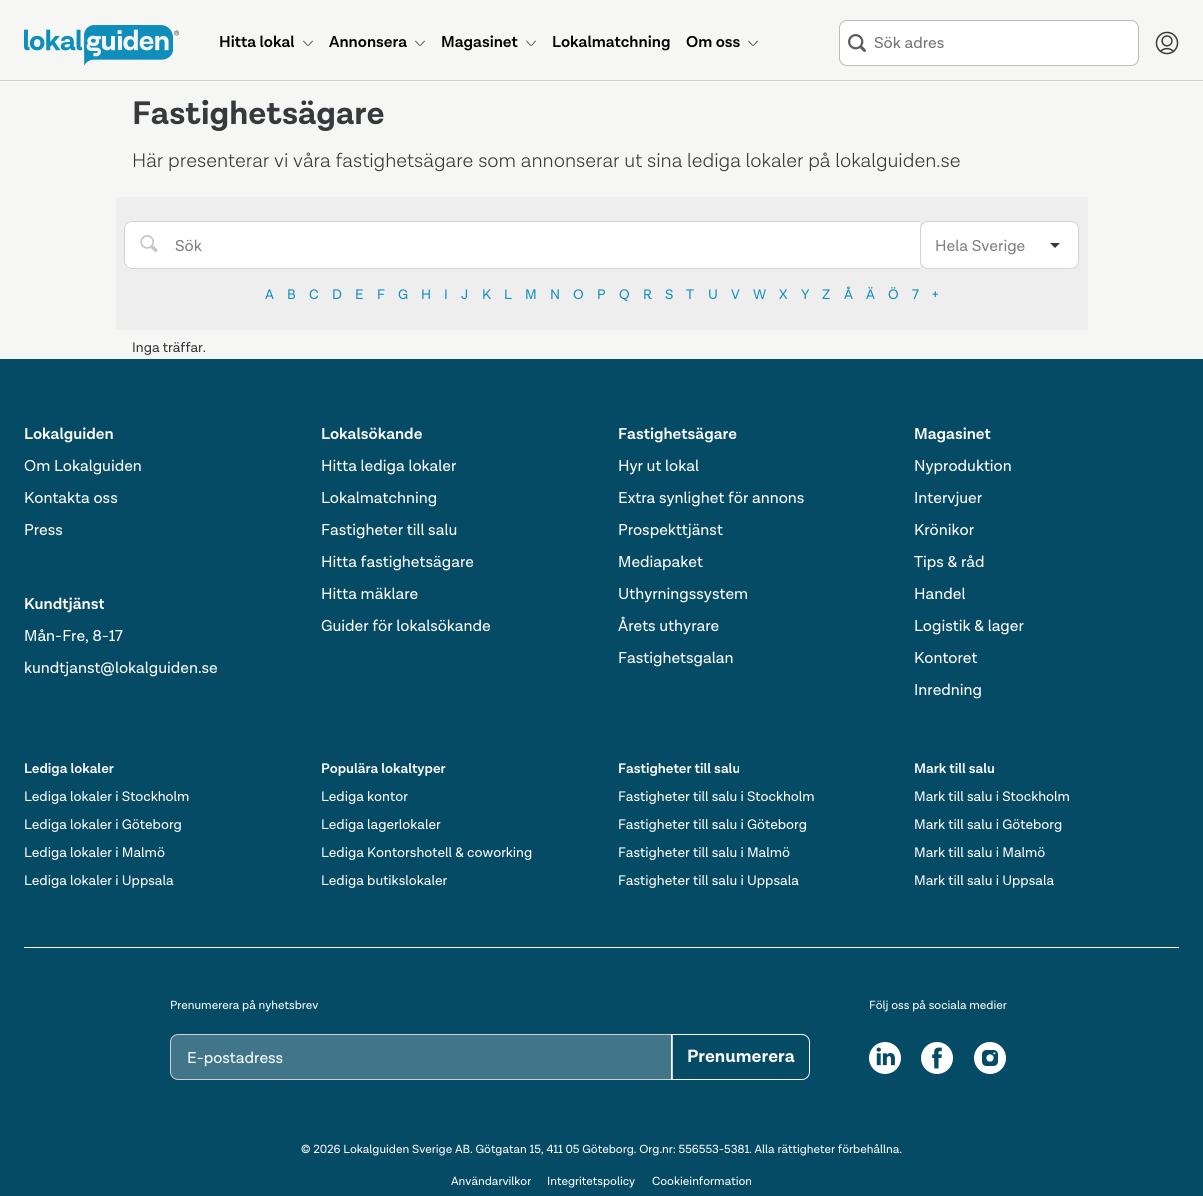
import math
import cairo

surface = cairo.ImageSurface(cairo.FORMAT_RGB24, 1203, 1196)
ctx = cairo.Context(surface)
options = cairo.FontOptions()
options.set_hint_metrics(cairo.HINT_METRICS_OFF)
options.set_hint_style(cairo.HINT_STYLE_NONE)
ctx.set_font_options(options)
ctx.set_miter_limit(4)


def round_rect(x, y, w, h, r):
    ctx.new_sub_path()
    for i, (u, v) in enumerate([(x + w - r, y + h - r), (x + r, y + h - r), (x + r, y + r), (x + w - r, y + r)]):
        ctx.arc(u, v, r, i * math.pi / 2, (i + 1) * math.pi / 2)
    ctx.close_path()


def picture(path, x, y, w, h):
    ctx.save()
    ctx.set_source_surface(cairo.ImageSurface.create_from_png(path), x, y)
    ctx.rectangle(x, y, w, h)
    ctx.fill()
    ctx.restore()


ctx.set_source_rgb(0.961, 0.961, 0.957)
ctx.paint()
ctx.set_source_rgb(0.808, 0.808, 0.804)
ctx.rectangle(0, 80, 1203, 1)
ctx.fill()
picture("img1.png", 24, 25, 155, 40)
ctx.select_font_face("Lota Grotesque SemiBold")
ctx.set_font_size(16)
ctx.set_source_rgb(0, 0, 0)
ctx.move_to(219, 47)
ctx.show_text("Hitta lokal")
ctx.new_path()
ctx.move_to(312.5, 41)
ctx.curve_to(306.5, 47, 309.5, 47, 303.5, 41)
ctx.set_line_width(0.6)
ctx.set_line_cap(cairo.LINE_CAP_ROUND)
ctx.set_line_join(cairo.LINE_JOIN_ROUND)
ctx.stroke()
ctx.move_to(329, 47)
ctx.show_text("Annonsera")
ctx.new_path()
ctx.move_to(424.5, 41)
ctx.curve_to(418.5, 47, 421.5, 47, 415.5, 41)
ctx.stroke()
ctx.move_to(441, 47)
ctx.show_text("Magasinet")
ctx.new_path()
ctx.move_to(535.5, 41)
ctx.curve_to(529.5, 47, 532.5, 47, 526.5, 41)
ctx.stroke()
ctx.move_to(552, 47)
ctx.show_text("Lokalmatchning")
ctx.move_to(686, 47)
ctx.show_text("Om oss")
ctx.new_path()
ctx.move_to(757.5, 41)
ctx.curve_to(751.5, 47, 754.5, 47, 748.5, 41)
ctx.stroke()
ctx.set_source_rgb(1, 1, 1)
round_rect(839.5, 20.5, 299, 45, 7.5)
ctx.fill_preserve()
ctx.set_source_rgb(0.733, 0.733, 0.725)
ctx.set_line_width(1)
ctx.set_line_cap(cairo.LINE_CAP_BUTT)
ctx.set_line_join(cairo.LINE_JOIN_MITER)
ctx.stroke()
picture("img2.png", 848, 34, 18, 18)
ctx.select_font_face("Lota Grotesque")
ctx.set_source_rgb(0.459, 0.459, 0.459)
ctx.move_to(874, 48)
ctx.show_text("Sök adres")
picture("img3.png", 1155, 31, 24, 24)
ctx.select_font_face("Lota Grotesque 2")
ctx.set_font_size(33)
ctx.set_source_rgb(0.216, 0.227, 0.235)
ctx.move_to(132, 124)
ctx.show_text("Fastighetsägare")
ctx.select_font_face("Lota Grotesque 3")
ctx.set_font_size(19.9)
ctx.move_to(132, 167)
ctx.show_text("Här presenterar vi våra fastighetsägare som annonserar ut sina lediga lokaler på lokalguiden.se")
ctx.set_source_rgb(0.933, 0.933, 0.933)
ctx.rectangle(116, 197, 972, 133)
ctx.fill()
ctx.set_source_rgb(1, 1, 1)
ctx.new_path()
ctx.move_to(132, 222)
ctx.line_to(920, 222)
ctx.line_to(920, 268)
ctx.line_to(132, 268)
ctx.curve_to(128, 268, 125, 265, 125, 261)
ctx.line_to(125, 229)
ctx.curve_to(125, 225, 128, 222, 132, 222)
ctx.close_path()
ctx.fill()
ctx.set_source_rgb(0.827, 0.827, 0.824)
ctx.set_fill_rule(cairo.FILL_RULE_EVEN_ODD)
ctx.new_path()
ctx.move_to(132, 221)
ctx.line_to(920, 221)
ctx.line_to(920, 269)
ctx.line_to(132, 269)
ctx.curve_to(128, 269, 124, 265, 124, 261)
ctx.line_to(124, 229)
ctx.curve_to(124, 225, 128, 221, 132, 221)
ctx.close_path()
ctx.move_to(132, 222)
ctx.line_to(920, 222)
ctx.line_to(920, 268)
ctx.line_to(132, 268)
ctx.curve_to(128, 268, 125, 265, 125, 261)
ctx.line_to(125, 229)
ctx.curve_to(125, 225, 128, 222, 132, 222)
ctx.close_path()
ctx.fill()
picture("img4.png", 140, 235, 18, 18)
ctx.select_font_face("Lota Grotesque")
ctx.set_font_size(16)
ctx.set_source_rgb(0.502, 0.502, 0.502)
ctx.move_to(175, 251)
ctx.show_text("Sök")
ctx.set_source_rgb(1, 1, 1)
round_rect(920.5, 221.5, 158, 47, 7.5)
ctx.fill_preserve()
ctx.set_source_rgb(0.827, 0.827, 0.824)
ctx.stroke()
ctx.set_source_rgb(0.502, 0.502, 0.502)
ctx.move_to(935, 251)
ctx.show_text("Hela Sverige")
picture("img5.png", 1050, 243, 10, 5)
ctx.set_font_size(14)
ctx.set_source_rgb(0.059, 0.553, 0.733)
ctx.move_to(265, 299)
ctx.show_text("A")
ctx.move_to(287, 299)
ctx.show_text("B")
ctx.move_to(309, 299)
ctx.show_text("C")
ctx.move_to(332, 299)
ctx.show_text("D")
ctx.move_to(355, 299)
ctx.show_text("E")
ctx.move_to(377, 299)
ctx.show_text("F")
ctx.move_to(398, 299)
ctx.show_text("G")
ctx.move_to(421, 299)
ctx.show_text("H")
ctx.move_to(444, 299)
ctx.show_text("I")
ctx.move_to(461, 299)
ctx.show_text("J")
ctx.move_to(482, 299)
ctx.show_text("K")
ctx.move_to(504, 299)
ctx.show_text("L")
ctx.move_to(525, 299)
ctx.show_text("M")
ctx.move_to(550, 299)
ctx.show_text("N")
ctx.move_to(573, 299)
ctx.show_text("O")
ctx.move_to(597, 299)
ctx.show_text("P")
ctx.move_to(619, 299)
ctx.show_text("Q")
ctx.move_to(643, 299)
ctx.show_text("R")
ctx.move_to(665, 299)
ctx.show_text("S")
ctx.move_to(686, 299)
ctx.show_text("T")
ctx.move_to(708, 299)
ctx.show_text("U")
ctx.move_to(731, 299)
ctx.show_text("V")
ctx.move_to(753, 299)
ctx.show_text("W")
ctx.move_to(779, 299)
ctx.show_text("X")
ctx.move_to(801, 299)
ctx.show_text("Y")
ctx.move_to(822, 299)
ctx.show_text("Z")
ctx.move_to(844, 299)
ctx.show_text("Å")
ctx.move_to(866, 299)
ctx.show_text("Ä")
ctx.move_to(888, 299)
ctx.show_text("Ö")
ctx.move_to(912, 299)
ctx.show_text("7")
ctx.move_to(932, 299)
ctx.show_text("+")
ctx.set_source_rgb(0.216, 0.227, 0.235)
ctx.move_to(132, 352)
ctx.show_text("Inga träffar.")
ctx.set_source_rgb(0.02, 0.294, 0.396)
ctx.rectangle(0, 359, 1203, 837)
ctx.fill()
ctx.select_font_face("Lota Grotesque SemiBold")
ctx.set_font_size(16)
ctx.set_source_rgb(1, 1, 1)
ctx.move_to(24, 439)
ctx.show_text("Lokalguiden")
ctx.select_font_face("Lota Grotesque")
ctx.move_to(24, 471)
ctx.show_text("Om Lokalguiden")
ctx.move_to(24, 503)
ctx.show_text("Kontakta oss")
ctx.move_to(24, 535)
ctx.show_text("Press")
ctx.select_font_face("Lota Grotesque SemiBold")
ctx.move_to(24, 609)
ctx.show_text("Kundtjänst")
ctx.select_font_face("Lota Grotesque")
ctx.move_to(24, 641)
ctx.show_text("Mån-Fre, 8-17")
ctx.move_to(24, 673)
ctx.show_text("kundtjanst@lokalguiden.se")
ctx.select_font_face("Lota Grotesque SemiBold")
ctx.move_to(321, 439)
ctx.show_text("Lokalsökande")
ctx.select_font_face("Lota Grotesque")
ctx.move_to(321, 471)
ctx.show_text("Hitta lediga lokaler")
ctx.move_to(321, 503)
ctx.show_text("Lokalmatchning")
ctx.move_to(321, 535)
ctx.show_text("Fastigheter till salu")
ctx.move_to(321, 567)
ctx.show_text("Hitta fastighetsägare")
ctx.move_to(321, 599)
ctx.show_text("Hitta mäklare")
ctx.move_to(321, 631)
ctx.show_text("Guider för lokalsökande")
ctx.select_font_face("Lota Grotesque SemiBold")
ctx.move_to(618, 439)
ctx.show_text("Fastighetsägare")
ctx.select_font_face("Lota Grotesque")
ctx.move_to(618, 471)
ctx.show_text("Hyr ut lokal")
ctx.move_to(618, 503)
ctx.show_text("Extra synlighet för annons")
ctx.move_to(618, 535)
ctx.show_text("Prospekttjänst")
ctx.move_to(618, 567)
ctx.show_text("Mediapaket")
ctx.move_to(618, 599)
ctx.show_text("Uthyrningssystem")
ctx.move_to(618, 631)
ctx.show_text("Årets uthyrare")
ctx.move_to(618, 663)
ctx.show_text("Fastighetsgalan")
ctx.select_font_face("Lota Grotesque SemiBold")
ctx.move_to(914, 439)
ctx.show_text("Magasinet")
ctx.select_font_face("Lota Grotesque")
ctx.move_to(914, 471)
ctx.show_text("Nyproduktion")
ctx.move_to(914, 503)
ctx.show_text("Intervjuer")
ctx.move_to(914, 535)
ctx.show_text("Krönikor")
ctx.move_to(914, 567)
ctx.show_text("Tips & råd")
ctx.move_to(914, 599)
ctx.show_text("Handel")
ctx.move_to(914, 631)
ctx.show_text("Logistik & lager")
ctx.move_to(914, 663)
ctx.show_text("Kontoret")
ctx.move_to(914, 695)
ctx.show_text("Inredning")
ctx.select_font_face("Lota Grotesque SemiBold")
ctx.set_font_size(14)
ctx.move_to(24, 773)
ctx.show_text("Lediga lokaler")
ctx.select_font_face("Lota Grotesque")
ctx.move_to(24, 801)
ctx.show_text("Lediga lokaler i Stockholm")
ctx.move_to(24, 829)
ctx.show_text("Lediga lokaler i Göteborg")
ctx.move_to(24, 857)
ctx.show_text("Lediga lokaler i Malmö")
ctx.move_to(24, 885)
ctx.show_text("Lediga lokaler i Uppsala")
ctx.select_font_face("Lota Grotesque SemiBold")
ctx.move_to(321, 773)
ctx.show_text("Populära lokaltyper")
ctx.select_font_face("Lota Grotesque")
ctx.move_to(321, 801)
ctx.show_text("Lediga kontor")
ctx.move_to(321, 829)
ctx.show_text("Lediga lagerlokaler")
ctx.move_to(321, 857)
ctx.show_text("Lediga Kontorshotell & coworking")
ctx.move_to(321, 885)
ctx.show_text("Lediga butikslokaler")
ctx.select_font_face("Lota Grotesque SemiBold")
ctx.move_to(618, 773)
ctx.show_text("Fastigheter till salu")
ctx.select_font_face("Lota Grotesque")
ctx.move_to(618, 801)
ctx.show_text("Fastigheter till salu i Stockholm")
ctx.move_to(618, 829)
ctx.show_text("Fastigheter till salu i Göteborg")
ctx.move_to(618, 857)
ctx.show_text("Fastigheter till salu i Malmö")
ctx.move_to(618, 885)
ctx.show_text("Fastigheter till salu i Uppsala")
ctx.select_font_face("Lota Grotesque SemiBold")
ctx.move_to(914, 773)
ctx.show_text("Mark till salu")
ctx.select_font_face("Lota Grotesque")
ctx.move_to(914, 801)
ctx.show_text("Mark till salu i Stockholm")
ctx.move_to(914, 829)
ctx.show_text("Mark till salu i Göteborg")
ctx.move_to(914, 857)
ctx.show_text("Mark till salu i Malmö")
ctx.move_to(914, 885)
ctx.show_text("Mark till salu i Uppsala")
ctx.rectangle(24, 947, 1155, 1)
ctx.fill()
ctx.set_font_size(12)
ctx.move_to(170, 1009)
ctx.show_text("Prenumerera på nyhetsbrev")
ctx.set_source_rgb(0.255, 0.463, 0.541)
ctx.new_path()
ctx.move_to(178, 1034.5)
ctx.line_to(672.5, 1034.5)
ctx.line_to(672.5, 1079.5)
ctx.line_to(178, 1079.5)
ctx.curve_to(174, 1079.5, 170.5, 1076, 170.5, 1072)
ctx.line_to(170.5, 1042)
ctx.curve_to(170.5, 1038, 174, 1034.5, 178, 1034.5)
ctx.close_path()
ctx.fill_preserve()
ctx.set_source_rgb(0.816, 0.816, 0.808)
ctx.stroke()
ctx.set_font_size(16)
ctx.set_source_rgb(1, 1, 1)
ctx.move_to(187, 1063)
ctx.show_text("E-postadress")
ctx.new_path()
ctx.move_to(671.5, 1034.5)
ctx.line_to(802, 1034.5)
ctx.curve_to(806, 1034.5, 809.5, 1038, 809.5, 1042)
ctx.line_to(809.5, 1072)
ctx.curve_to(809.5, 1076, 806, 1079.5, 802, 1079.5)
ctx.line_to(671.5, 1079.5)
ctx.close_path()
ctx.set_source_rgb(0.976, 0.976, 0.973)
ctx.stroke()
ctx.select_font_face("Lota Grotesque 2")
ctx.set_font_size(18)
ctx.move_to(687, 1062)
ctx.show_text("Prenumerera")
ctx.select_font_face("Lota Grotesque")
ctx.set_font_size(12)
ctx.set_source_rgb(1, 1, 1)
ctx.move_to(869, 1009)
ctx.show_text("Följ oss på sociala medier")
picture("img6.png", 869, 1042, 32, 32)
picture("img7.png", 921, 1042, 32, 32)
picture("img8.png", 974, 1042, 32, 32)
ctx.move_to(301, 1153)
ctx.show_text("© 2026 Lokalguiden Sverige AB. Götgatan 15, 411 05 Göteborg. Org.nr: 556553-5381. Alla rättigheter förbehållna.")
ctx.move_to(451, 1185)
ctx.show_text("Användarvilkor")
ctx.move_to(547, 1185)
ctx.show_text("Integritetspolicy")
ctx.move_to(652, 1185)
ctx.show_text("Cookieinformation")
surface.write_to_png("page.png")
